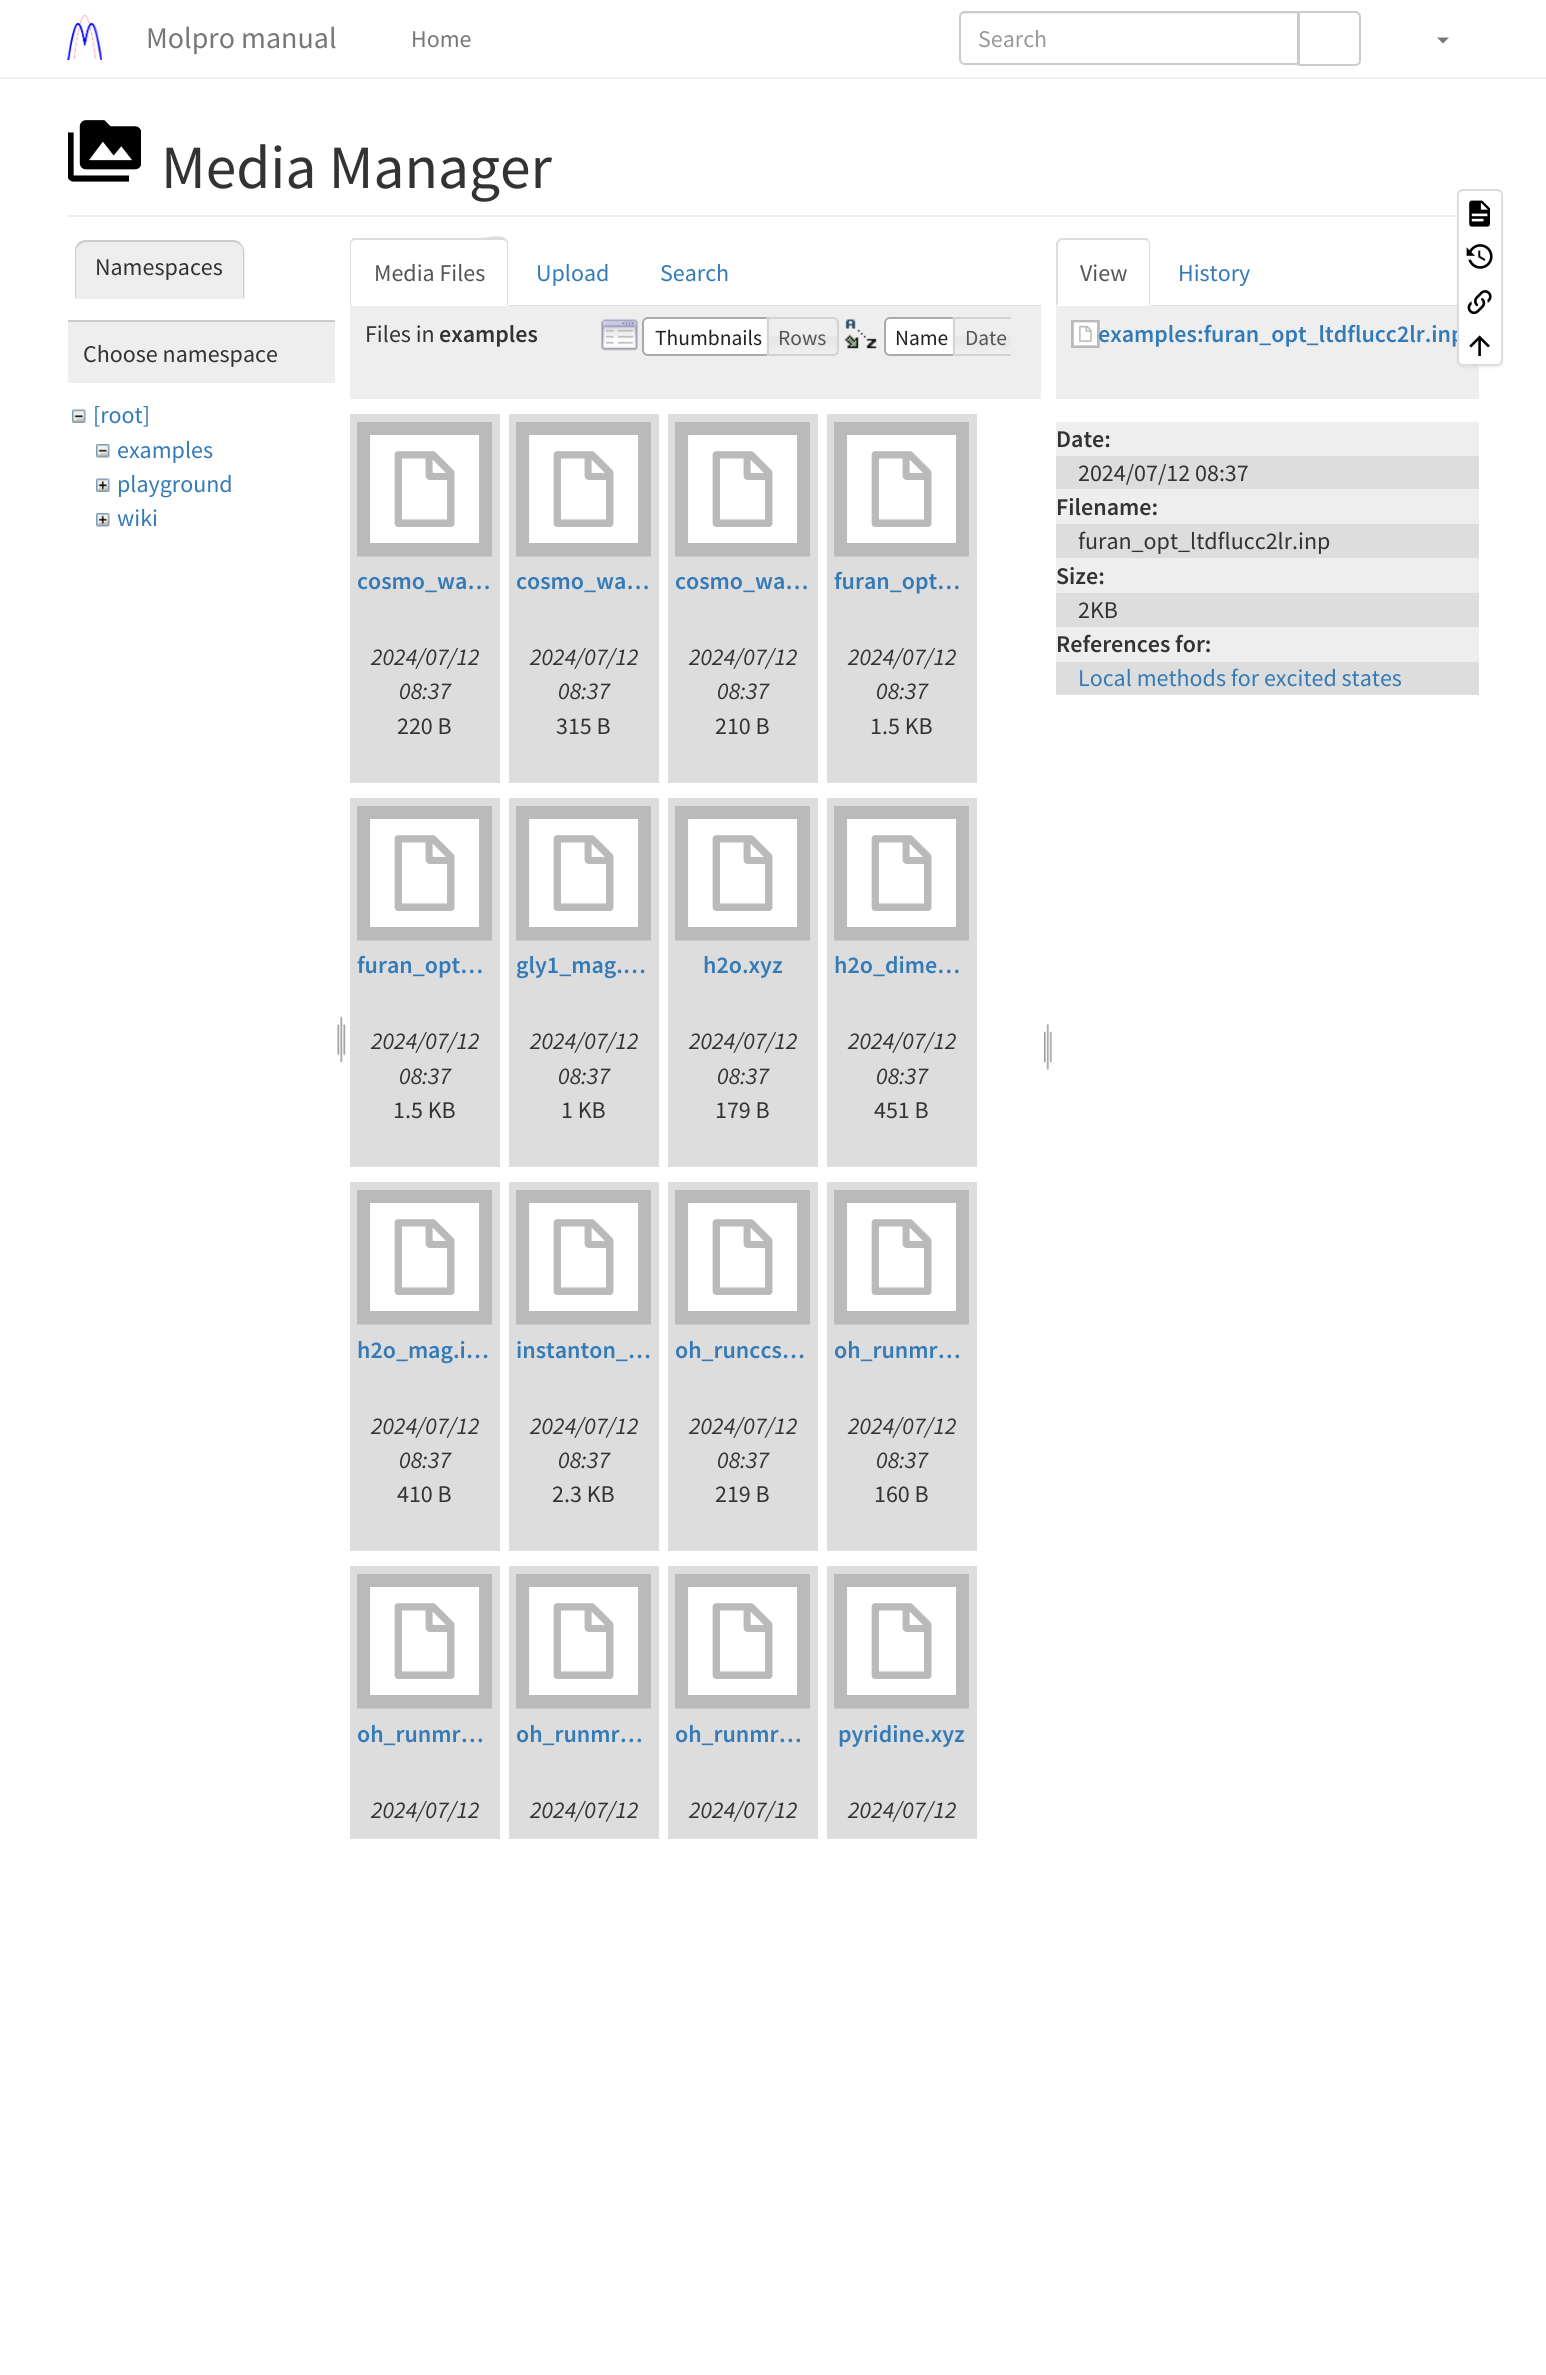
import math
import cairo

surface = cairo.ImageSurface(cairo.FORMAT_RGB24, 1546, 2375)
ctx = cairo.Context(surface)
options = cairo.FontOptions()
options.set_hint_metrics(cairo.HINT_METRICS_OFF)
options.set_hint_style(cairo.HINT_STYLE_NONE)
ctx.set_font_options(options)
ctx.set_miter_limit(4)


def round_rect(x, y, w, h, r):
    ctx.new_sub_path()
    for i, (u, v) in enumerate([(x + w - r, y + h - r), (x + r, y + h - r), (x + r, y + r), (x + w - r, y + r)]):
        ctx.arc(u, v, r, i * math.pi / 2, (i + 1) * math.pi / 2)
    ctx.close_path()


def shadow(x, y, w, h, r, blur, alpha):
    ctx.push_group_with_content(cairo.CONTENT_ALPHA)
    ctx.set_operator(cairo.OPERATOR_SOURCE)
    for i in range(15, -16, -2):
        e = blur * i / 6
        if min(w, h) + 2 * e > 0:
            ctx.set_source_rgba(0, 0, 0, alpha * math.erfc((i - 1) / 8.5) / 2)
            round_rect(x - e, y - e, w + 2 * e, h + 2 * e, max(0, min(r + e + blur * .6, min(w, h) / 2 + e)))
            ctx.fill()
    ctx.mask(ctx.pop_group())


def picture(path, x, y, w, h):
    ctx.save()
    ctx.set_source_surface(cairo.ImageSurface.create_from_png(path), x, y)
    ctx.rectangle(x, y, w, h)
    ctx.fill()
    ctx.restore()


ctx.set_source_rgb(1, 1, 1)
ctx.paint()
ctx.set_source_rgb(0.933, 0.933, 0.933)
ctx.rectangle(0, 77, 1546, 2)
ctx.fill()
picture("img1.png", 67, 15, 35, 45)
ctx.select_font_face("Source Sans Pro")
ctx.set_font_size(30)
ctx.set_source_rgb(0.467, 0.467, 0.467)
ctx.move_to(146, 48)
ctx.show_text("Molpro manual")
ctx.set_font_size(24)
ctx.move_to(411, 47)
ctx.show_text("Home")
ctx.set_source_rgb(0.925, 0.925, 0.925)
ctx.new_path()
ctx.move_to(964, 14)
ctx.line_to(1298, 14)
ctx.line_to(1298, 12)
ctx.line_to(965, 12)
ctx.curve_to(962, 12, 960, 15, 960, 18)
ctx.curve_to(960, 16, 962, 14, 964, 14)
ctx.close_path()
ctx.fill()
ctx.new_path()
ctx.move_to(965, 12)
ctx.line_to(1298, 12)
ctx.line_to(1298, 64)
ctx.line_to(965, 64)
ctx.curve_to(962, 64, 960, 62, 960, 59)
ctx.line_to(960, 17)
ctx.curve_to(960, 14, 962, 12, 965, 12)
ctx.close_path()
ctx.set_source_rgb(0.8, 0.8, 0.8)
ctx.stroke()
ctx.set_source_rgb(0.6, 0.6, 0.6)
ctx.move_to(978, 47)
ctx.show_text("Search")
ctx.set_source_rgb(1, 1, 1)
ctx.new_path()
ctx.move_to(1299, 12)
ctx.line_to(1355, 12)
ctx.curve_to(1358, 12, 1360, 14, 1360, 17)
ctx.line_to(1360, 60)
ctx.curve_to(1360, 63, 1358, 65, 1355, 65)
ctx.line_to(1299, 65)
ctx.close_path()
ctx.fill_preserve()
ctx.set_source_rgb(0.8, 0.8, 0.8)
ctx.stroke()
ctx.set_source_rgb(0.467, 0.467, 0.467)
ctx.new_path()
ctx.move_to(1437, 37.5)
ctx.line_to(1449, 37.5)
ctx.line_to(1443, 43.5)
ctx.close_path()
ctx.fill()
ctx.set_source_rgb(0.933, 0.933, 0.933)
ctx.rectangle(68, 215, 1389, 2)
ctx.fill()
picture("img2.png", 68, 120, 73, 62)
ctx.set_font_size(61.5)
ctx.set_source_rgb(0.2, 0.2, 0.2)
ctx.move_to(161, 188)
ctx.show_text("Media Manager")
ctx.set_source_rgb(0.933, 0.933, 0.933)
ctx.new_path()
ctx.move_to(87, 240)
ctx.line_to(233, 240)
ctx.curve_to(239.5, 240, 245, 245.5, 245, 252)
ctx.line_to(245, 299)
ctx.line_to(75, 299)
ctx.line_to(75, 252)
ctx.curve_to(75, 245.5, 80.5, 240, 87, 240)
ctx.close_path()
ctx.fill()
ctx.set_source_rgb(0.8, 0.8, 0.8)
ctx.new_path()
ctx.move_to(87, 240)
ctx.curve_to(84, 240, 80, 241, 78, 243)
ctx.line_to(80, 245)
ctx.curve_to(81, 243, 84, 242, 87, 242)
ctx.line_to(232, 242)
ctx.curve_to(235, 242, 238, 243, 240, 245)
ctx.line_to(241, 244)
ctx.curve_to(239, 241, 236, 240, 232, 240)
ctx.close_path()
ctx.fill()
ctx.new_path()
ctx.move_to(241, 244)
ctx.curve_to(243, 246, 244, 249, 244, 252)
ctx.line_to(244, 298)
ctx.line_to(243, 297)
ctx.line_to(243, 252)
ctx.curve_to(243, 249, 242, 246, 240, 245)
ctx.close_path()
ctx.fill()
ctx.set_source_rgb(0.933, 0.933, 0.933)
ctx.new_path()
ctx.move_to(244, 298)
ctx.line_to(243, 297)
ctx.line_to(76, 297)
ctx.line_to(76, 298)
ctx.close_path()
ctx.fill()
ctx.set_source_rgb(0.8, 0.8, 0.8)
ctx.new_path()
ctx.move_to(75, 252)
ctx.line_to(75, 298)
ctx.line_to(76, 297)
ctx.line_to(76, 252)
ctx.curve_to(76, 249, 77, 246, 80, 245)
ctx.line_to(78, 243)
ctx.curve_to(76, 246, 75, 248, 75, 252)
ctx.close_path()
ctx.fill()
ctx.set_font_size(24)
ctx.set_source_rgb(0.2, 0.2, 0.2)
ctx.move_to(95, 275)
ctx.show_text("Namespaces")
ctx.set_source_rgb(0.933, 0.933, 0.933)
ctx.rectangle(68, 322, 267, 61)
ctx.fill()
ctx.set_source_rgb(0.8, 0.8, 0.8)
ctx.rectangle(68, 320, 267, 2)
ctx.fill()
ctx.set_source_rgb(0.2, 0.2, 0.2)
ctx.move_to(83, 362)
ctx.show_text("Choose namespace")
picture("img3.png", 72, 409, 14, 14)
ctx.set_source_rgb(0.2, 0.478, 0.718)
ctx.move_to(93, 423)
ctx.show_text("[root]")
picture("img4.png", 96, 444, 14, 14)
ctx.move_to(117, 458)
ctx.show_text("examples")
picture("img5.png", 96, 478, 14, 14)
ctx.move_to(117, 492)
ctx.show_text("playground")
picture("img6.png", 96, 513, 14, 14)
ctx.move_to(117, 526)
ctx.show_text("wiki")
picture("img7.png", 337, 1015, 9, 48)
ctx.set_source_rgb(0.867, 0.867, 0.867)
ctx.rectangle(509, 305, 532, 1)
ctx.fill()
ctx.new_path()
ctx.move_to(356, 240)
ctx.curve_to(354, 240, 353, 241, 352, 241)
ctx.line_to(351, 240)
ctx.line_to(353, 238)
ctx.line_to(479, 238)
ctx.curve_to(489, 238, 501, 233, 507, 240)
ctx.line_to(506, 241)
ctx.curve_to(505, 241, 504, 240, 502, 240)
ctx.close_path()
ctx.fill()
ctx.new_path()
ctx.move_to(507, 240)
ctx.curve_to(508, 241, 508, 243, 508, 244)
ctx.line_to(508, 306)
ctx.line_to(506, 304)
ctx.line_to(507, 304)
ctx.line_to(507, 244)
ctx.line_to(506, 241)
ctx.close_path()
ctx.fill()
ctx.new_path()
ctx.move_to(350, 306)
ctx.line_to(350, 244)
ctx.curve_to(350, 243, 350, 241, 351, 240)
ctx.line_to(352, 241)
ctx.line_to(351, 244)
ctx.line_to(351, 304)
ctx.line_to(352, 304)
ctx.close_path()
ctx.fill()
ctx.set_source_rgb(0.333, 0.333, 0.333)
ctx.move_to(374, 281)
ctx.show_text("Media Files")
ctx.set_source_rgb(0.2, 0.478, 0.718)
ctx.move_to(536, 281)
ctx.show_text("Upload")
ctx.move_to(660, 281)
ctx.show_text("Search")
ctx.set_source_rgb(0.933, 0.933, 0.933)
ctx.rectangle(350, 306, 691, 93)
ctx.fill()
ctx.set_source_rgb(0.2, 0.2, 0.2)
ctx.move_to(365, 342)
ctx.show_text("Files in")
ctx.select_font_face("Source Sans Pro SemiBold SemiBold")
ctx.move_to(439, 342)
ctx.show_text("examples")
picture("img8.png", 601, 319, 37, 32)
ctx.set_source_rgb(1, 1, 1)
ctx.new_path()
ctx.move_to(648, 317)
ctx.line_to(774, 317)
ctx.line_to(774, 356)
ctx.line_to(648, 356)
ctx.curve_to(644.5, 356, 642, 353.5, 642, 350)
ctx.line_to(642, 323)
ctx.curve_to(642, 319.5, 644.5, 317, 648, 317)
ctx.close_path()
ctx.fill()
picture("img9.png", 642, 317, 4, 4)
ctx.new_path()
ctx.move_to(648, 318)
ctx.line_to(773, 318)
ctx.line_to(773, 355)
ctx.line_to(648, 355)
ctx.curve_to(645, 355, 643, 353, 643, 350)
ctx.line_to(643, 323)
ctx.curve_to(643, 320, 645, 318, 648, 318)
ctx.close_path()
ctx.set_source_rgb(0.667, 0.667, 0.667)
ctx.stroke()
ctx.select_font_face("Source Sans Pro")
ctx.set_font_size(21.5)
ctx.set_source_rgb(0.129, 0.129, 0.129)
ctx.move_to(655, 345)
ctx.show_text("Thumbnails")
picture("img10.png", 766, 317, 72, 38)
ctx.new_path()
ctx.move_to(768, 318)
ctx.line_to(833, 318)
ctx.curve_to(836, 318, 838, 320, 838, 323)
ctx.line_to(838, 350)
ctx.curve_to(838, 353, 836, 355, 833, 355)
ctx.line_to(768, 355)
ctx.close_path()
ctx.set_source_rgb(0.827, 0.827, 0.827)
ctx.stroke()
ctx.set_source_rgb(0.333, 0.333, 0.333)
ctx.move_to(778, 345)
ctx.show_text("Rows")
picture("img11.png", 844, 319, 33, 30)
ctx.set_source_rgb(1, 1, 1)
ctx.new_path()
ctx.move_to(890, 317)
ctx.line_to(962, 317)
ctx.line_to(962, 356)
ctx.line_to(890, 356)
ctx.curve_to(886.5, 356, 884, 353.5, 884, 350)
ctx.line_to(884, 323)
ctx.curve_to(884, 319.5, 886.5, 317, 890, 317)
ctx.close_path()
ctx.fill()
picture("img12.png", 883, 317, 5, 36)
ctx.new_path()
ctx.move_to(890, 318)
ctx.line_to(961, 318)
ctx.line_to(961, 355)
ctx.line_to(890, 355)
ctx.curve_to(887, 355, 885, 353, 885, 350)
ctx.line_to(885, 323)
ctx.curve_to(885, 320, 887, 318, 890, 318)
ctx.close_path()
ctx.set_source_rgb(0.667, 0.667, 0.667)
ctx.stroke()
ctx.set_source_rgb(0.129, 0.129, 0.129)
ctx.move_to(895, 345)
ctx.show_text("Name")
picture("img13.png", 952, 317, 59, 38)
ctx.save()
ctx.rectangle(590, 317, 421, 39)
ctx.clip()
ctx.new_path()
ctx.move_to(954, 318)
ctx.line_to(1013, 318)
ctx.curve_to(1016, 318, 1018, 320, 1018, 323)
ctx.line_to(1018, 350)
ctx.curve_to(1018, 353, 1016, 355, 1013, 355)
ctx.line_to(954, 355)
ctx.close_path()
ctx.set_source_rgb(0.827, 0.827, 0.827)
ctx.stroke()
ctx.restore()
ctx.set_source_rgb(0.333, 0.333, 0.333)
ctx.move_to(965, 345)
ctx.show_text("Date")
ctx.set_source_rgb(0.867, 0.867, 0.867)
ctx.rectangle(350, 414, 150, 369)
ctx.fill()
picture("img14.png", 357, 422, 135, 135)
ctx.select_font_face("Source Sans Pro SemiBold SemiBold")
ctx.set_font_size(24)
ctx.set_source_rgb(0.2, 0.478, 0.718)
ctx.move_to(357, 589)
ctx.show_text("cosmo_wa…")
ctx.select_font_face("Source Sans Pro", cairo.FONT_SLANT_ITALIC)
ctx.set_source_rgb(0.2, 0.2, 0.2)
ctx.move_to(371, 665)
ctx.show_text("2024/07/12")
ctx.move_to(399, 699)
ctx.show_text("08:37")
ctx.select_font_face("Source Sans Pro")
ctx.move_to(397, 734)
ctx.show_text("220 B")
ctx.set_source_rgb(0.867, 0.867, 0.867)
ctx.rectangle(509, 414, 150, 369)
ctx.fill()
picture("img14.png", 516, 422, 135, 135)
ctx.select_font_face("Source Sans Pro SemiBold SemiBold")
ctx.set_source_rgb(0.2, 0.478, 0.718)
ctx.move_to(516, 589)
ctx.show_text("cosmo_wa…")
ctx.select_font_face("Source Sans Pro", cairo.FONT_SLANT_ITALIC)
ctx.set_source_rgb(0.2, 0.2, 0.2)
ctx.move_to(530, 665)
ctx.show_text("2024/07/12")
ctx.move_to(558, 699)
ctx.show_text("08:37")
ctx.select_font_face("Source Sans Pro")
ctx.move_to(556, 734)
ctx.show_text("315 B")
ctx.set_source_rgb(0.867, 0.867, 0.867)
ctx.rectangle(668, 414, 150, 369)
ctx.fill()
picture("img14.png", 675, 422, 135, 135)
ctx.select_font_face("Source Sans Pro SemiBold SemiBold")
ctx.set_source_rgb(0.2, 0.478, 0.718)
ctx.move_to(675, 589)
ctx.show_text("cosmo_wa…")
ctx.select_font_face("Source Sans Pro", cairo.FONT_SLANT_ITALIC)
ctx.set_source_rgb(0.2, 0.2, 0.2)
ctx.move_to(689, 665)
ctx.show_text("2024/07/12")
ctx.move_to(717, 699)
ctx.show_text("08:37")
ctx.select_font_face("Source Sans Pro")
ctx.move_to(715, 734)
ctx.show_text("210 B")
ctx.set_source_rgb(0.867, 0.867, 0.867)
ctx.rectangle(827, 414, 150, 369)
ctx.fill()
picture("img14.png", 834, 422, 135, 135)
ctx.select_font_face("Source Sans Pro SemiBold SemiBold")
ctx.set_source_rgb(0.2, 0.478, 0.718)
ctx.move_to(834, 589)
ctx.show_text("furan_opt…")
ctx.select_font_face("Source Sans Pro", cairo.FONT_SLANT_ITALIC)
ctx.set_source_rgb(0.2, 0.2, 0.2)
ctx.move_to(848, 665)
ctx.show_text("2024/07/12")
ctx.move_to(876, 699)
ctx.show_text("08:37")
ctx.select_font_face("Source Sans Pro")
ctx.move_to(870, 734)
ctx.show_text("1.5 KB")
ctx.set_source_rgb(0.867, 0.867, 0.867)
ctx.rectangle(350, 798, 150, 369)
ctx.fill()
picture("img14.png", 357, 806, 135, 135)
ctx.select_font_face("Source Sans Pro SemiBold SemiBold")
ctx.set_source_rgb(0.2, 0.478, 0.718)
ctx.move_to(357, 973)
ctx.show_text("furan_opt…")
ctx.select_font_face("Source Sans Pro", cairo.FONT_SLANT_ITALIC)
ctx.set_source_rgb(0.2, 0.2, 0.2)
ctx.move_to(371, 1049)
ctx.show_text("2024/07/12")
ctx.move_to(399, 1084)
ctx.show_text("08:37")
ctx.select_font_face("Source Sans Pro")
ctx.move_to(393, 1118)
ctx.show_text("1.5 KB")
ctx.set_source_rgb(0.867, 0.867, 0.867)
ctx.rectangle(509, 798, 150, 369)
ctx.fill()
picture("img14.png", 516, 806, 135, 135)
ctx.select_font_face("Source Sans Pro SemiBold SemiBold")
ctx.set_source_rgb(0.2, 0.478, 0.718)
ctx.move_to(516, 973)
ctx.show_text("gly1_mag.…")
ctx.select_font_face("Source Sans Pro", cairo.FONT_SLANT_ITALIC)
ctx.set_source_rgb(0.2, 0.2, 0.2)
ctx.move_to(530, 1049)
ctx.show_text("2024/07/12")
ctx.move_to(558, 1084)
ctx.show_text("08:37")
ctx.select_font_face("Source Sans Pro")
ctx.move_to(561, 1118)
ctx.show_text("1 KB")
ctx.set_source_rgb(0.867, 0.867, 0.867)
ctx.rectangle(668, 798, 150, 369)
ctx.fill()
picture("img14.png", 675, 806, 135, 135)
ctx.select_font_face("Source Sans Pro SemiBold SemiBold")
ctx.set_source_rgb(0.2, 0.478, 0.718)
ctx.move_to(703, 973)
ctx.show_text("h2o.xyz")
ctx.select_font_face("Source Sans Pro", cairo.FONT_SLANT_ITALIC)
ctx.set_source_rgb(0.2, 0.2, 0.2)
ctx.move_to(689, 1049)
ctx.show_text("2024/07/12")
ctx.move_to(717, 1084)
ctx.show_text("08:37")
ctx.select_font_face("Source Sans Pro")
ctx.move_to(715, 1118)
ctx.show_text("179 B")
ctx.set_source_rgb(0.867, 0.867, 0.867)
ctx.rectangle(827, 798, 150, 369)
ctx.fill()
picture("img14.png", 834, 806, 135, 135)
ctx.select_font_face("Source Sans Pro SemiBold SemiBold")
ctx.set_source_rgb(0.2, 0.478, 0.718)
ctx.move_to(834, 973)
ctx.show_text("h2o_dime…")
ctx.select_font_face("Source Sans Pro", cairo.FONT_SLANT_ITALIC)
ctx.set_source_rgb(0.2, 0.2, 0.2)
ctx.move_to(848, 1049)
ctx.show_text("2024/07/12")
ctx.move_to(876, 1084)
ctx.show_text("08:37")
ctx.select_font_face("Source Sans Pro")
ctx.move_to(874, 1118)
ctx.show_text("451 B")
ctx.set_source_rgb(0.867, 0.867, 0.867)
ctx.rectangle(350, 1182, 150, 369)
ctx.fill()
picture("img14.png", 357, 1190, 135, 135)
ctx.select_font_face("Source Sans Pro SemiBold SemiBold")
ctx.set_source_rgb(0.2, 0.478, 0.718)
ctx.move_to(357, 1358)
ctx.show_text("h2o_mag.i…")
ctx.select_font_face("Source Sans Pro", cairo.FONT_SLANT_ITALIC)
ctx.set_source_rgb(0.2, 0.2, 0.2)
ctx.move_to(371, 1434)
ctx.show_text("2024/07/12")
ctx.move_to(399, 1468)
ctx.show_text("08:37")
ctx.select_font_face("Source Sans Pro")
ctx.move_to(397, 1502)
ctx.show_text("410 B")
ctx.set_source_rgb(0.867, 0.867, 0.867)
ctx.rectangle(509, 1182, 150, 369)
ctx.fill()
picture("img14.png", 516, 1190, 135, 135)
ctx.select_font_face("Source Sans Pro SemiBold SemiBold")
ctx.set_source_rgb(0.2, 0.478, 0.718)
ctx.move_to(516, 1358)
ctx.show_text("instanton_…")
ctx.select_font_face("Source Sans Pro", cairo.FONT_SLANT_ITALIC)
ctx.set_source_rgb(0.2, 0.2, 0.2)
ctx.move_to(530, 1434)
ctx.show_text("2024/07/12")
ctx.move_to(558, 1468)
ctx.show_text("08:37")
ctx.select_font_face("Source Sans Pro")
ctx.move_to(552, 1502)
ctx.show_text("2.3 KB")
ctx.set_source_rgb(0.867, 0.867, 0.867)
ctx.rectangle(668, 1182, 150, 369)
ctx.fill()
picture("img14.png", 675, 1190, 135, 135)
ctx.select_font_face("Source Sans Pro SemiBold SemiBold")
ctx.set_source_rgb(0.2, 0.478, 0.718)
ctx.move_to(675, 1358)
ctx.show_text("oh_runccs…")
ctx.select_font_face("Source Sans Pro", cairo.FONT_SLANT_ITALIC)
ctx.set_source_rgb(0.2, 0.2, 0.2)
ctx.move_to(689, 1434)
ctx.show_text("2024/07/12")
ctx.move_to(717, 1468)
ctx.show_text("08:37")
ctx.select_font_face("Source Sans Pro")
ctx.move_to(715, 1502)
ctx.show_text("219 B")
ctx.set_source_rgb(0.867, 0.867, 0.867)
ctx.rectangle(827, 1182, 150, 369)
ctx.fill()
picture("img14.png", 834, 1190, 135, 135)
ctx.select_font_face("Source Sans Pro SemiBold SemiBold")
ctx.set_source_rgb(0.2, 0.478, 0.718)
ctx.move_to(834, 1358)
ctx.show_text("oh_runmr…")
ctx.select_font_face("Source Sans Pro", cairo.FONT_SLANT_ITALIC)
ctx.set_source_rgb(0.2, 0.2, 0.2)
ctx.move_to(848, 1434)
ctx.show_text("2024/07/12")
ctx.move_to(876, 1468)
ctx.show_text("08:37")
ctx.select_font_face("Source Sans Pro")
ctx.move_to(874, 1502)
ctx.show_text("160 B")
ctx.set_source_rgb(0.867, 0.867, 0.867)
ctx.rectangle(350, 1566, 150, 273)
ctx.fill()
picture("img14.png", 357, 1574, 135, 135)
ctx.select_font_face("Source Sans Pro SemiBold SemiBold")
ctx.set_source_rgb(0.2, 0.478, 0.718)
ctx.move_to(357, 1742)
ctx.show_text("oh_runmr…")
ctx.select_font_face("Source Sans Pro", cairo.FONT_SLANT_ITALIC)
ctx.set_source_rgb(0.2, 0.2, 0.2)
ctx.move_to(371, 1818)
ctx.show_text("2024/07/12")
ctx.set_source_rgb(0.867, 0.867, 0.867)
ctx.rectangle(509, 1566, 150, 273)
ctx.fill()
picture("img14.png", 516, 1574, 135, 135)
ctx.select_font_face("Source Sans Pro SemiBold SemiBold")
ctx.set_source_rgb(0.2, 0.478, 0.718)
ctx.move_to(516, 1742)
ctx.show_text("oh_runmr…")
ctx.select_font_face("Source Sans Pro", cairo.FONT_SLANT_ITALIC)
ctx.set_source_rgb(0.2, 0.2, 0.2)
ctx.move_to(530, 1818)
ctx.show_text("2024/07/12")
ctx.set_source_rgb(0.867, 0.867, 0.867)
ctx.rectangle(668, 1566, 150, 273)
ctx.fill()
picture("img14.png", 675, 1574, 135, 135)
ctx.select_font_face("Source Sans Pro SemiBold SemiBold")
ctx.set_source_rgb(0.2, 0.478, 0.718)
ctx.move_to(675, 1742)
ctx.show_text("oh_runmr…")
ctx.select_font_face("Source Sans Pro", cairo.FONT_SLANT_ITALIC)
ctx.set_source_rgb(0.2, 0.2, 0.2)
ctx.move_to(689, 1818)
ctx.show_text("2024/07/12")
ctx.set_source_rgb(0.867, 0.867, 0.867)
ctx.rectangle(827, 1566, 150, 273)
ctx.fill()
picture("img14.png", 834, 1574, 135, 135)
ctx.select_font_face("Source Sans Pro SemiBold SemiBold")
ctx.set_source_rgb(0.2, 0.478, 0.718)
ctx.move_to(838, 1742)
ctx.show_text("pyridine.xyz")
ctx.select_font_face("Source Sans Pro", cairo.FONT_SLANT_ITALIC)
ctx.set_source_rgb(0.2, 0.2, 0.2)
ctx.move_to(848, 1818)
ctx.show_text("2024/07/12")
picture("img15.png", 1044, 1023, 8, 47)
ctx.set_source_rgb(0.867, 0.867, 0.867)
ctx.rectangle(1151, 305, 306, 1)
ctx.fill()
ctx.new_path()
ctx.move_to(1062, 240)
ctx.curve_to(1061, 240, 1060, 241, 1059, 242)
ctx.line_to(1058, 240)
ctx.line_to(1060, 238)
ctx.line_to(1147, 238)
ctx.line_to(1149, 240)
ctx.line_to(1148, 241)
ctx.curve_to(1147, 241, 1146, 240, 1144, 240)
ctx.close_path()
ctx.fill()
ctx.new_path()
ctx.move_to(1149, 240)
ctx.curve_to(1150, 241, 1150, 243, 1150, 244)
ctx.line_to(1150, 306)
ctx.line_to(1148, 304)
ctx.line_to(1149, 304)
ctx.line_to(1149, 244)
ctx.line_to(1148, 241)
ctx.close_path()
ctx.fill()
ctx.new_path()
ctx.move_to(1056, 306)
ctx.line_to(1058, 304)
ctx.line_to(1058, 244)
ctx.line_to(1059, 242)
ctx.line_to(1058, 240)
ctx.curve_to(1057, 241, 1056, 243, 1056, 244)
ctx.close_path()
ctx.fill()
ctx.select_font_face("Source Sans Pro")
ctx.set_source_rgb(0.333, 0.333, 0.333)
ctx.move_to(1080, 281)
ctx.show_text("View")
ctx.set_source_rgb(0.2, 0.478, 0.718)
ctx.move_to(1178, 281)
ctx.show_text("History")
ctx.set_source_rgb(0.933, 0.933, 0.933)
ctx.rectangle(1056, 306, 423, 93)
ctx.fill()
picture("img16.png", 1071, 320, 29, 28)
ctx.select_font_face("Source Sans Pro SemiBold SemiBold")
ctx.set_source_rgb(0.2, 0.478, 0.718)
ctx.move_to(1098, 342)
ctx.show_text("examples:furan_opt_ltdflucc2lr.inp")
ctx.set_source_rgb(0.933, 0.933, 0.933)
ctx.rectangle(1056, 422, 423, 34)
ctx.fill()
ctx.set_source_rgb(0.2, 0.2, 0.2)
ctx.move_to(1056, 447)
ctx.show_text("Date:")
ctx.set_source_rgb(0.867, 0.867, 0.867)
ctx.rectangle(1056, 456, 423, 33)
ctx.fill()
ctx.select_font_face("Source Sans Pro")
ctx.set_source_rgb(0.2, 0.2, 0.2)
ctx.move_to(1078, 481)
ctx.show_text("2024/07/12 08:37")
ctx.set_source_rgb(0.933, 0.933, 0.933)
ctx.rectangle(1056, 489, 423, 35)
ctx.fill()
ctx.select_font_face("Source Sans Pro SemiBold SemiBold")
ctx.set_source_rgb(0.2, 0.2, 0.2)
ctx.move_to(1056, 515)
ctx.show_text("Filename:")
ctx.set_source_rgb(0.867, 0.867, 0.867)
ctx.rectangle(1056, 524, 423, 34)
ctx.fill()
ctx.select_font_face("Source Sans Pro")
ctx.set_source_rgb(0.2, 0.2, 0.2)
ctx.move_to(1078, 549)
ctx.show_text("furan_opt_ltdflucc2lr.inp")
ctx.set_source_rgb(0.933, 0.933, 0.933)
ctx.rectangle(1056, 558, 423, 35)
ctx.fill()
ctx.select_font_face("Source Sans Pro SemiBold SemiBold")
ctx.set_source_rgb(0.2, 0.2, 0.2)
ctx.move_to(1056, 584)
ctx.show_text("Size:")
ctx.set_source_rgb(0.867, 0.867, 0.867)
ctx.rectangle(1056, 593, 423, 34)
ctx.fill()
ctx.select_font_face("Source Sans Pro")
ctx.set_source_rgb(0.2, 0.2, 0.2)
ctx.move_to(1078, 618)
ctx.show_text("2KB")
ctx.set_source_rgb(0.933, 0.933, 0.933)
ctx.rectangle(1056, 627, 423, 35)
ctx.fill()
ctx.select_font_face("Source Sans Pro SemiBold SemiBold")
ctx.set_source_rgb(0.2, 0.2, 0.2)
ctx.move_to(1056, 652)
ctx.show_text("References for:")
ctx.set_source_rgb(0.867, 0.867, 0.867)
ctx.rectangle(1056, 662, 423, 33)
ctx.fill()
ctx.select_font_face("Source Sans Pro")
ctx.set_source_rgb(0.2, 0.478, 0.718)
ctx.move_to(1078, 686)
ctx.show_text("Local methods for excited states")
ctx.set_source_rgb(0, 0, 0)
shadow(1457, 191, 46, 177, 6, 1, 0.05)
ctx.set_source_rgb(1, 1, 1)
round_rect(1458, 190, 44, 175, 5)
ctx.fill_preserve()
ctx.set_source_rgb(0.867, 0.867, 0.867)
ctx.stroke()
picture("img17.png", 1469, 200, 21, 27)
picture("img18.png", 1466, 244, 27, 25)
picture("img19.png", 1467, 290, 25, 25)
picture("img20.png", 1469, 335, 21, 21)
surface.write_to_png("page.png")
